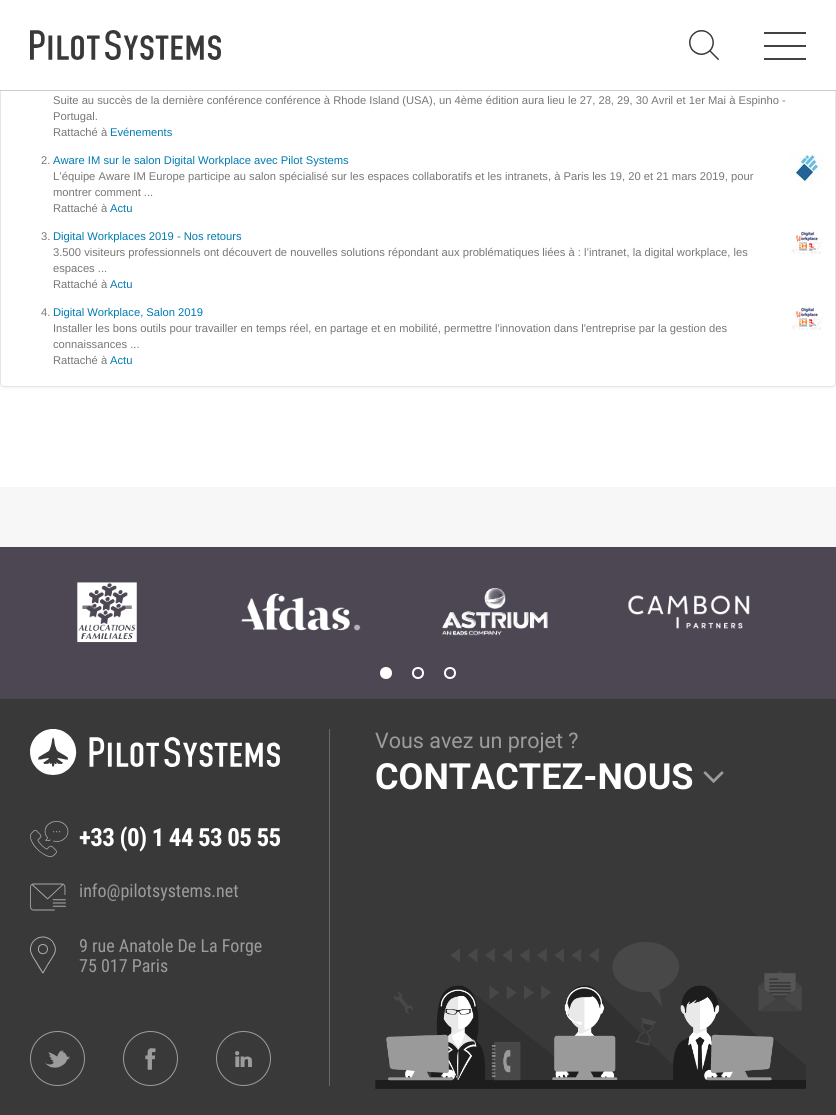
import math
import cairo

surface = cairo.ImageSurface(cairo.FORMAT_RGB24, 836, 1115)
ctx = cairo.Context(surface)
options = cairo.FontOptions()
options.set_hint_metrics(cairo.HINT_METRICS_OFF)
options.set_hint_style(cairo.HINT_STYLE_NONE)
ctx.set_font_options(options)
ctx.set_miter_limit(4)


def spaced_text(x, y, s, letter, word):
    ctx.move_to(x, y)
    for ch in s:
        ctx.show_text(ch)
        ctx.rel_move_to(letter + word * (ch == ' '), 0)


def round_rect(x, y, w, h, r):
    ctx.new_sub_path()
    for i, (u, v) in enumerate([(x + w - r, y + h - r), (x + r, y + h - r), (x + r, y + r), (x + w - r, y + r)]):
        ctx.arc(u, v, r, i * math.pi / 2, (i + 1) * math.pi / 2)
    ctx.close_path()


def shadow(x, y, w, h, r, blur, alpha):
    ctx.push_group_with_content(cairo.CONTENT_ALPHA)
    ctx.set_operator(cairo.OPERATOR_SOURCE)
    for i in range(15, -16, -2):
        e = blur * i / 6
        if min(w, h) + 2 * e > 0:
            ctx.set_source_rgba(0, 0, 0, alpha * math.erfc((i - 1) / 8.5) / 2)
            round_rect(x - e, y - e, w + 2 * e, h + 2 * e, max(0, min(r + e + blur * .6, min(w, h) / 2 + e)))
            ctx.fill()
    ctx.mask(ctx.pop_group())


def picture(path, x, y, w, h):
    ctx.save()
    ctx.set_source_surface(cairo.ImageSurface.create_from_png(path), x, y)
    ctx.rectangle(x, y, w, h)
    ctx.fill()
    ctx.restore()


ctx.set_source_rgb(1, 1, 1)
ctx.paint()
ctx.set_source_rgb(0, 0, 0)
shadow(0, 16, 836, 372, 4, 1.5, 0.05)
ctx.set_source_rgb(1, 1, 1)
round_rect(0.5, 15.5, 835, 371, 3.5)
ctx.fill_preserve()
ctx.set_source_rgb(0.898, 0.898, 0.898)
ctx.set_line_width(1)
ctx.stroke()
ctx.set_source_rgb(1, 1, 1)
ctx.rectangle(0, 15, 836, 75)
ctx.fill()
ctx.set_source_rgb(0.8, 0.8, 0.8)
ctx.rectangle(0, 90, 836, 1)
ctx.fill()
picture("img1.png", 30, 30, 191, 30)
picture("img2.png", 689, 30, 30, 30)
ctx.set_source_rgb(0.259, 0.259, 0.259)
ctx.rectangle(764, 32, 42, 2)
ctx.fill()
ctx.rectangle(764, 45, 42, 2)
ctx.fill()
ctx.rectangle(764, 58, 42, 2)
ctx.fill()
ctx.select_font_face("Liberation Sans")
ctx.set_font_size(11.2)
ctx.set_source_rgb(0.467, 0.467, 0.467)
ctx.move_to(53, 104)
ctx.show_text("Suite au succès de la dernière conférence conférence à Rhode Island (USA), un 4ème édition aura lieu le 27, 28, 29, 30 Avril et 1er Mai à Espinho -")
ctx.move_to(53, 120)
ctx.show_text("Portugal.")
ctx.move_to(53, 136)
ctx.show_text("Rattaché à")
ctx.set_source_rgb(0, 0.482, 0.694)
ctx.move_to(110, 136)
ctx.show_text("Evénements")
ctx.set_source_rgb(0.467, 0.467, 0.467)
ctx.move_to(41, 164)
ctx.show_text("2.")
ctx.set_source_rgb(0, 0.482, 0.694)
ctx.move_to(53, 164)
ctx.show_text("Aware IM sur le salon Digital Workplace avec Pilot Systems")
picture("img3.png", 791, 152, 32, 32)
ctx.set_source_rgb(0.467, 0.467, 0.467)
ctx.move_to(53, 180)
ctx.show_text("L’équipe Aware IM Europe participe au salon spécialisé sur les espaces collaboratifs et les intranets, à Paris les 19, 20 et 21 mars 2019, pour")
ctx.move_to(53, 196)
ctx.show_text("montrer comment ...")
ctx.move_to(53, 212)
ctx.show_text("Rattaché à")
ctx.set_source_rgb(0, 0.482, 0.694)
ctx.move_to(110, 212)
ctx.show_text("Actu")
ctx.set_source_rgb(0.467, 0.467, 0.467)
ctx.move_to(41, 240)
ctx.show_text("3.")
ctx.set_source_rgb(0, 0.482, 0.694)
ctx.move_to(53, 240)
ctx.show_text("Digital Workplaces 2019 - Nos retours")
picture("img4.png", 791, 231, 32, 23)
ctx.set_source_rgb(0.467, 0.467, 0.467)
ctx.move_to(53, 256)
ctx.show_text("3.500 visiteurs professionnels ont découvert de nouvelles solutions répondant aux problématiques liées à : l’intranet, la digital workplace, les")
ctx.move_to(53, 272)
ctx.show_text("espaces ...")
ctx.move_to(53, 288)
ctx.show_text("Rattaché à")
ctx.set_source_rgb(0, 0.482, 0.694)
ctx.move_to(110, 288)
ctx.show_text("Actu")
ctx.set_source_rgb(0.467, 0.467, 0.467)
ctx.move_to(41, 316)
ctx.show_text("4.")
ctx.set_source_rgb(0, 0.482, 0.694)
ctx.move_to(53, 316)
ctx.show_text("Digital Workplace, Salon 2019")
picture("img4.png", 791, 307, 32, 23)
ctx.set_source_rgb(0.467, 0.467, 0.467)
ctx.move_to(53, 332)
ctx.show_text("Installer les bons outils pour travailler en temps réel, en partage et en mobilité, permettre l'innovation dans l'entreprise par la gestion des")
ctx.move_to(53, 348)
ctx.show_text("connaissances ...")
ctx.move_to(53, 364)
ctx.show_text("Rattaché à")
ctx.set_source_rgb(0, 0.482, 0.694)
ctx.move_to(110, 364)
ctx.show_text("Actu")
ctx.set_source_rgb(0.965, 0.965, 0.965)
ctx.rectangle(0, 487, 836, 60)
ctx.fill()
ctx.set_source_rgb(0.227, 0.224, 0.224)
ctx.rectangle(0, 699, 836, 416)
ctx.fill()
ctx.set_source_rgb(0.298, 0.278, 0.325)
ctx.rectangle(0, 547, 836, 152)
ctx.fill()
picture("img5.png", 77, 582, 60, 61)
picture("img6.png", 241, 593, 120, 38)
picture("img7.png", 442, 588, 106, 48)
picture("img8.png", 628, 595, 122, 34)
ctx.set_source_rgb(1, 1, 1)
ctx.arc(386, 673, 5, 0, 2 * math.pi)
ctx.fill_preserve()
ctx.set_line_width(2)
ctx.stroke()
ctx.arc(418, 673, 5, 0, 2 * math.pi)
ctx.stroke()
ctx.arc(450, 673, 5, 0, 2 * math.pi)
ctx.stroke()
picture("img9.png", 375, 942, 431, 147)
ctx.select_font_face("Roboto")
ctx.set_font_size(21.5)
ctx.set_source_rgb(0.612, 0.612, 0.612)
ctx.move_to(375, 748)
ctx.show_text("Vous avez un projet ?")
ctx.select_font_face("Roboto", cairo.FONT_SLANT_NORMAL, cairo.FONT_WEIGHT_BOLD)
ctx.set_font_size(36)
ctx.set_source_rgb(1, 1, 1)
ctx.move_to(375, 789)
ctx.show_text("CONTACTEZ-NOUS")
picture("img10.png", 703, 771, 21, 12)
ctx.set_source_rgb(0.408, 0.408, 0.408)
ctx.rectangle(329, 729, 1, 357)
ctx.fill()
picture("img11.png", 30, 729, 250, 46)
picture("img12.png", 30, 821, 39, 36)
ctx.select_font_face("Roboto Condensed", cairo.FONT_SLANT_NORMAL, cairo.FONT_WEIGHT_BOLD)
ctx.set_font_size(25)
ctx.set_source_rgb(1, 1, 1)
spaced_text(79, 846, "+33 (0) 1 44 53 05 55", -0.6, 0)
picture("img13.png", 30, 883, 36, 28)
ctx.select_font_face("Roboto Condensed")
ctx.set_font_size(18)
ctx.set_source_rgb(0.612, 0.612, 0.612)
ctx.move_to(79, 897)
ctx.show_text("info@pilotsystems.net")
picture("img14.png", 30, 936, 26, 38)
ctx.move_to(79, 952)
ctx.show_text("9 rue Anatole De La Forge")
ctx.move_to(79, 972)
ctx.show_text("75 017 Paris")
ctx.new_path()
ctx.arc(57.5, 1058.5, 27, 0, 2 * math.pi)
ctx.set_source_rgb(0.616, 0.612, 0.612)
ctx.set_line_width(1)
ctx.stroke()
picture("img15.png", 45, 1050, 25, 18)
ctx.arc(150.5, 1058.5, 27, 0, 2 * math.pi)
ctx.stroke()
picture("img16.png", 145, 1048, 11, 22)
ctx.arc(243.5, 1058.5, 27, 0, 2 * math.pi)
ctx.stroke()
picture("img17.png", 235, 1051, 17, 16)
surface.write_to_png("page.png")
